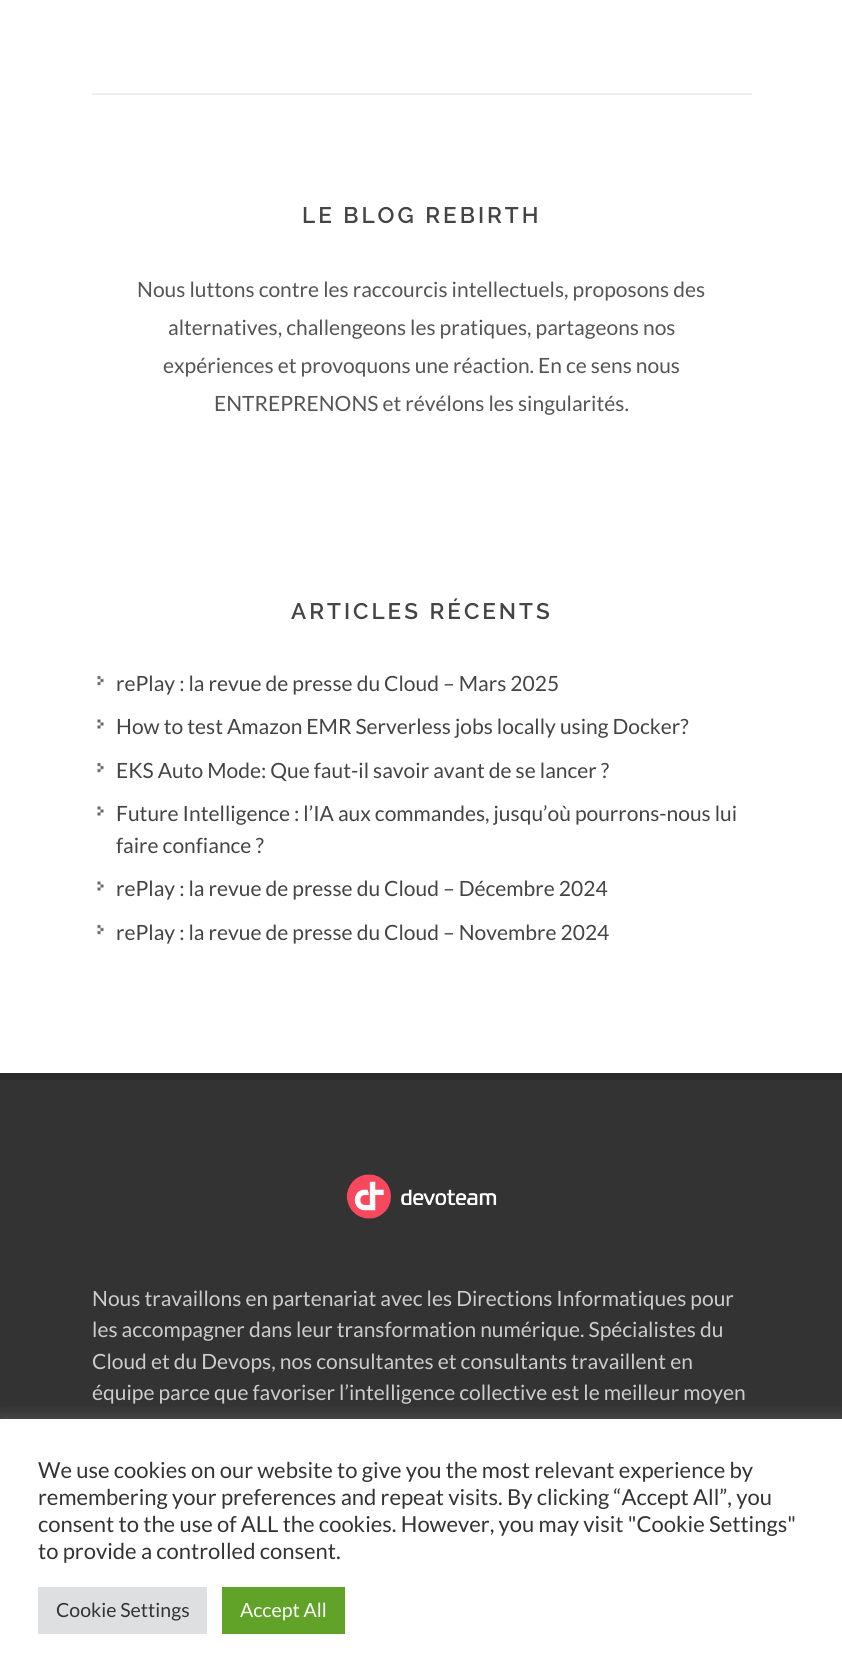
import math
import cairo

surface = cairo.ImageSurface(cairo.FORMAT_RGB24, 842, 1678)
ctx = cairo.Context(surface)
options = cairo.FontOptions()
options.set_hint_metrics(cairo.HINT_METRICS_OFF)
options.set_hint_style(cairo.HINT_STYLE_NONE)
ctx.set_font_options(options)
ctx.set_miter_limit(4)


def spaced_text(x, y, s, letter, word):
    ctx.move_to(x, y)
    for ch in s:
        ctx.show_text(ch)
        ctx.rel_move_to(letter + word * (ch == ' '), 0)


def round_rect(x, y, w, h, r):
    ctx.new_sub_path()
    for i, (u, v) in enumerate([(x + w - r, y + h - r), (x + r, y + h - r), (x + r, y + r), (x + w - r, y + r)]):
        ctx.arc(u, v, r, i * math.pi / 2, (i + 1) * math.pi / 2)
    ctx.close_path()


def shadow(x, y, w, h, r, blur, alpha):
    ctx.push_group_with_content(cairo.CONTENT_ALPHA)
    ctx.set_operator(cairo.OPERATOR_SOURCE)
    for i in range(15, -16, -2):
        e = blur * i / 6
        if min(w, h) + 2 * e > 0:
            ctx.set_source_rgba(0, 0, 0, alpha * math.erfc((i - 1) / 8.5) / 2)
            round_rect(x - e, y - e, w + 2 * e, h + 2 * e, max(0, min(r + e + blur * .6, min(w, h) / 2 + e)))
            ctx.fill()
    ctx.mask(ctx.pop_group())


def picture(path, x, y, w, h):
    ctx.save()
    ctx.set_source_surface(cairo.ImageSurface.create_from_png(path), x, y)
    ctx.rectangle(x, y, w, h)
    ctx.fill()
    ctx.restore()


ctx.set_source_rgb(1, 1, 1)
ctx.paint()
ctx.set_source_rgb(0.933, 0.933, 0.933)
ctx.rectangle(92, 93, 660, 2)
ctx.fill()
ctx.select_font_face("Raleway SemiBold")
ctx.set_font_size(22.5)
ctx.set_source_rgb(0.267, 0.267, 0.267)
spaced_text(302, 223, "LE BLOG REBIRTH", 3, 0)
ctx.select_font_face("Lato")
ctx.set_font_size(21)
ctx.set_source_rgb(0.333, 0.333, 0.333)
ctx.move_to(137, 297)
ctx.show_text("Nous luttons contre les raccourcis intellectuels, proposons des")
ctx.move_to(168, 335)
ctx.show_text("alternatives, challengeons les pratiques, partageons nos")
ctx.move_to(163, 373)
ctx.show_text("expériences et provoquons une réaction. En ce sens nous")
ctx.move_to(214, 411)
ctx.show_text("ENTREPRENONS et révélons les singularités.")
ctx.select_font_face("Raleway SemiBold")
ctx.set_font_size(22.5)
ctx.set_source_rgb(0.267, 0.267, 0.267)
spaced_text(291, 619, "ARTICLES RÉCENTS", 3, 0)
picture("img1.png", 97, 675, 7, 11)
ctx.select_font_face("Lato")
ctx.set_font_size(21)
ctx.move_to(116, 691)
ctx.show_text("rePlay : la revue de presse du Cloud – Mars 2025")
picture("img2.png", 97, 719, 7, 10)
ctx.move_to(116, 734)
ctx.show_text("How to test Amazon EMR Serverless jobs locally using Docker?")
picture("img1.png", 97, 762, 7, 11)
ctx.move_to(116, 778)
ctx.show_text("EKS Auto Mode: Que faut-il savoir avant de se lancer ?")
picture("img2.png", 97, 806, 7, 10)
ctx.move_to(116, 821)
ctx.show_text("Future Intelligence : l’IA aux commandes, jusqu’où pourrons-nous lui")
ctx.move_to(116, 853)
ctx.show_text("faire confiance ?")
picture("img2.png", 97, 881, 7, 10)
ctx.move_to(116, 896)
ctx.show_text("rePlay : la revue de presse du Cloud – Décembre 2024")
picture("img1.png", 97, 924, 7, 11)
ctx.move_to(116, 940)
ctx.show_text("rePlay : la revue de presse du Cloud – Novembre 2024")
ctx.set_source_rgb(0.2, 0.2, 0.2)
ctx.rectangle(0, 1080, 842, 339)
ctx.fill()
ctx.set_source_rgb(0.161, 0.161, 0.161)
ctx.rectangle(0, 1073, 842, 7)
ctx.fill()
picture("img3.png", 346, 1174, 151, 45)
ctx.set_source_rgb(0.8, 0.8, 0.8)
ctx.move_to(92, 1306)
ctx.show_text("Nous travaillons en partenariat avec les Directions Informatiques pour")
ctx.move_to(92, 1337)
ctx.show_text("les accompagner dans leur transformation numérique. Spécialistes du")
ctx.move_to(92, 1369)
ctx.show_text("Cloud et du Devops, nos consultantes et consultants travaillent en")
ctx.move_to(92, 1400)
ctx.show_text("équipe parce que favoriser l’intelligence collective est le meilleur moyen")
ctx.set_source_rgb(0.675, 0.671, 0.671)
shadow(0, 1418, 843, 259, 0, 7.5, 0.3)
ctx.set_source_rgb(1, 1, 1)
ctx.rectangle(0, 1419, 842, 259)
ctx.fill()
ctx.set_font_size(22)
ctx.set_source_rgb(0.2, 0.2, 0.2)
ctx.move_to(38, 1478)
ctx.show_text("We use cookies on our website to give you the most relevant experience by")
ctx.move_to(38, 1505)
ctx.show_text("remembering your preferences and repeat visits. By clicking “Accept All”, you")
ctx.move_to(38, 1532)
ctx.show_text("consent to the use of ALL the cookies. However, you may visit \"Cookie Settings\"")
ctx.move_to(38, 1559)
ctx.show_text("to provide a controlled consent.")
ctx.set_source_rgb(0.871, 0.875, 0.878)
ctx.rectangle(38, 1587, 169, 47)
ctx.fill()
ctx.set_font_size(19.5)
ctx.set_source_rgb(0.2, 0.2, 0.2)
ctx.move_to(56, 1617)
ctx.show_text("Cookie Settings")
ctx.set_source_rgb(0.38, 0.635, 0.161)
ctx.rectangle(222, 1587, 123, 47)
ctx.fill()
ctx.set_source_rgb(1, 1, 1)
ctx.move_to(240, 1617)
ctx.show_text("Accept All")
surface.write_to_png("page.png")
